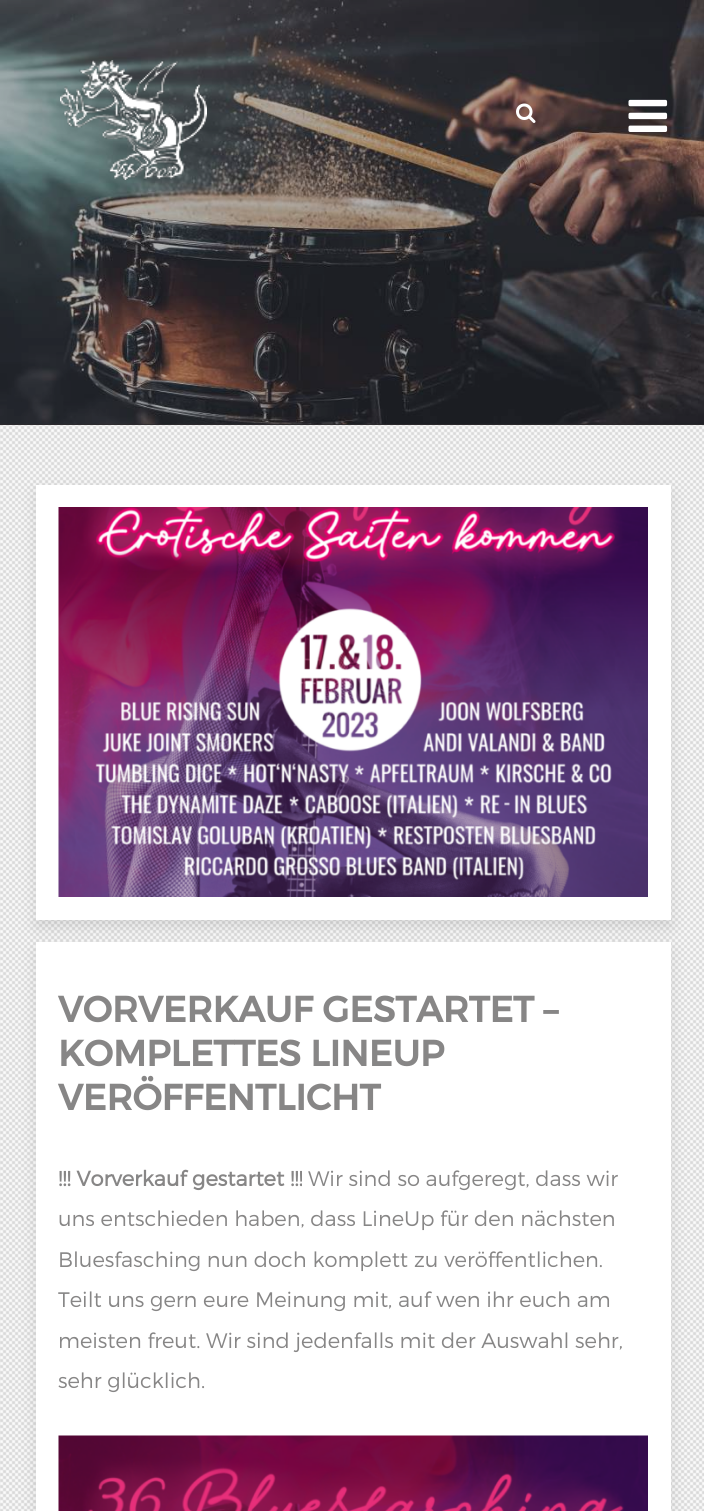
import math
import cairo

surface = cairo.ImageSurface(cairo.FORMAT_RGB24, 704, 1511)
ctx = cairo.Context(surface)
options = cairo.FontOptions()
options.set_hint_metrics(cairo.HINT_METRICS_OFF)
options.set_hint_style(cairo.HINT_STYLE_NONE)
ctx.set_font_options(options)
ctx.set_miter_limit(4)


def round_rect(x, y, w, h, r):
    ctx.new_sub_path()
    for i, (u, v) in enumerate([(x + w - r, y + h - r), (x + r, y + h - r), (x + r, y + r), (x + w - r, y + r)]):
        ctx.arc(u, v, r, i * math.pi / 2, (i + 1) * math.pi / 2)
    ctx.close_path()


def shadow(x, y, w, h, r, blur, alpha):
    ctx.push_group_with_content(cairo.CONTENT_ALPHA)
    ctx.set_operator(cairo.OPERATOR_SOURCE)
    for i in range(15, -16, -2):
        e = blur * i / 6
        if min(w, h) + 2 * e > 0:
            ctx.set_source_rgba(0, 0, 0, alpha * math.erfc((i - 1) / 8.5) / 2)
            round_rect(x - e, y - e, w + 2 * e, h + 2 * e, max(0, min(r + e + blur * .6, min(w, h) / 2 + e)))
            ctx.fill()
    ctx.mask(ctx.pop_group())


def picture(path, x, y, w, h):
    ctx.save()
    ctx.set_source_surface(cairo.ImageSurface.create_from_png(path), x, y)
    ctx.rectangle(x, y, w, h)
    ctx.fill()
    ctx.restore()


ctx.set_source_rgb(1, 1, 1)
ctx.paint()
picture("img1.png", 0, 425, 704, 1086)
ctx.set_source_rgb(0.259, 0.239, 0.259)
ctx.rectangle(0, 424, 704, 1)
ctx.fill()
picture("img2.png", 0, 0, 704, 425)
ctx.set_source_rgba(0, 0, 0, 0.3)
ctx.rectangle(0, 0, 704, 425)
ctx.fill()
picture("img3.png", 60, 60, 147, 120)
picture("img4.png", 516, 103, 20, 20)
picture("img5.png", 628, 99, 40, 33)
ctx.set_source_rgb(0, 0, 0)
shadow(36, 950, 635, 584, 0, 7.5, 0.1)
ctx.set_source_rgb(1, 1, 1)
ctx.rectangle(36, 942, 635, 569)
ctx.fill()
ctx.set_source_rgb(0, 0, 0)
shadow(36, 492, 635, 435, 0, 7.5, 0.1)
ctx.set_source_rgb(1, 1, 1)
ctx.rectangle(36, 485, 635, 435)
ctx.fill()
picture("img6.png", 58, 507, 590, 390)
ctx.select_font_face("Montserrat", cairo.FONT_SLANT_NORMAL, cairo.FONT_WEIGHT_BOLD)
ctx.set_font_size(36)
ctx.set_source_rgb(0.529, 0.525, 0.525)
ctx.move_to(58, 1022)
ctx.show_text("VORVERKAUF GESTARTET –")
ctx.move_to(58, 1066)
ctx.show_text("KOMPLETTES LINEUP")
ctx.move_to(58, 1110)
ctx.show_text("VERÖFFENTLICHT")
ctx.select_font_face("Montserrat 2", cairo.FONT_SLANT_NORMAL, cairo.FONT_WEIGHT_BOLD)
ctx.set_font_size(21)
ctx.move_to(58, 1186)
ctx.show_text("!!! Vorverkauf gestartet !!!")
ctx.select_font_face("Montserrat Light")
ctx.move_to(308, 1186)
ctx.show_text("Wir sind so aufgeregt, dass wir")
ctx.move_to(58, 1226)
ctx.show_text("uns entschieden haben, dass LineUp für den nächsten")
ctx.move_to(58, 1267)
ctx.show_text("Bluesfasching nun doch komplett zu veröffentlichen.")
ctx.move_to(58, 1307)
ctx.show_text("Teilt uns gern eure Meinung mit, auf wen ihr euch am")
ctx.move_to(58, 1348)
ctx.show_text("meisten freut. Wir sind jedenfalls mit der Auswahl sehr,")
ctx.move_to(58, 1388)
ctx.show_text("sehr glücklich.")
picture("img7.png", 58, 1435, 590, 76)
surface.write_to_png("page.png")
